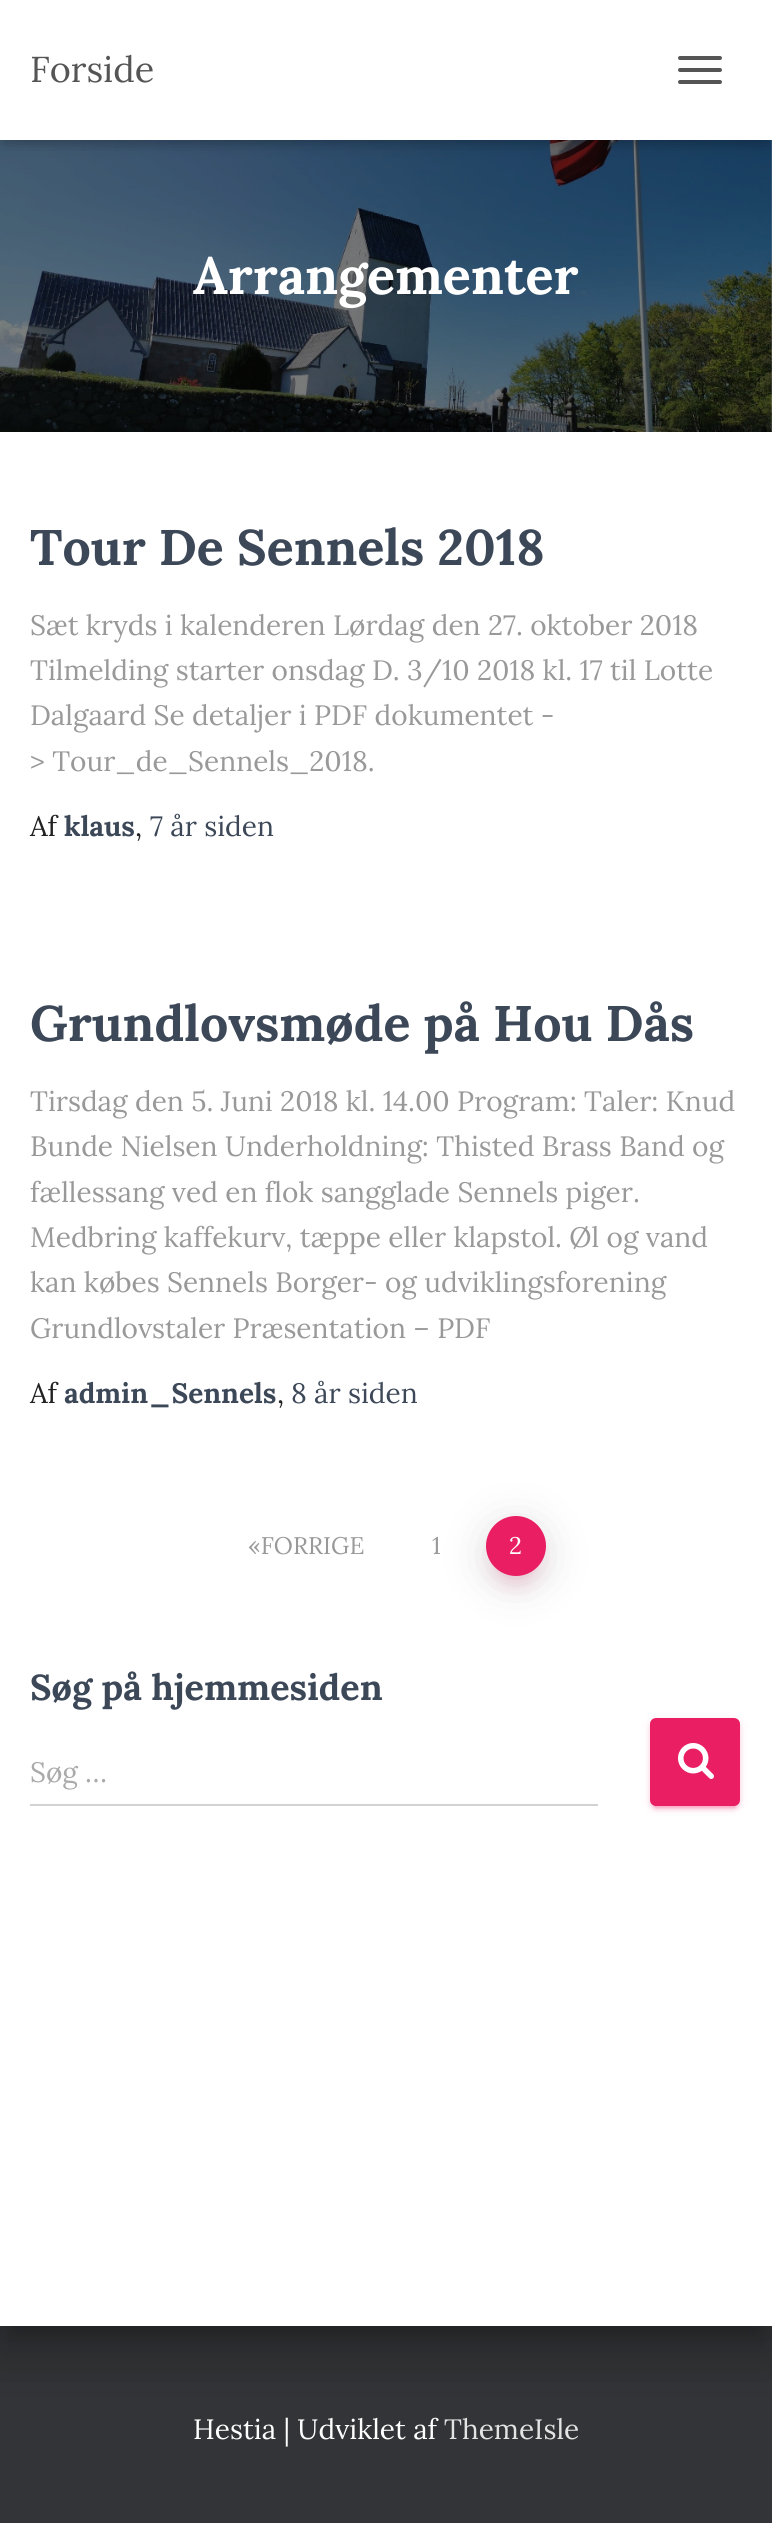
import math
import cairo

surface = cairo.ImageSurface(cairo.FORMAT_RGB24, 772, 2523)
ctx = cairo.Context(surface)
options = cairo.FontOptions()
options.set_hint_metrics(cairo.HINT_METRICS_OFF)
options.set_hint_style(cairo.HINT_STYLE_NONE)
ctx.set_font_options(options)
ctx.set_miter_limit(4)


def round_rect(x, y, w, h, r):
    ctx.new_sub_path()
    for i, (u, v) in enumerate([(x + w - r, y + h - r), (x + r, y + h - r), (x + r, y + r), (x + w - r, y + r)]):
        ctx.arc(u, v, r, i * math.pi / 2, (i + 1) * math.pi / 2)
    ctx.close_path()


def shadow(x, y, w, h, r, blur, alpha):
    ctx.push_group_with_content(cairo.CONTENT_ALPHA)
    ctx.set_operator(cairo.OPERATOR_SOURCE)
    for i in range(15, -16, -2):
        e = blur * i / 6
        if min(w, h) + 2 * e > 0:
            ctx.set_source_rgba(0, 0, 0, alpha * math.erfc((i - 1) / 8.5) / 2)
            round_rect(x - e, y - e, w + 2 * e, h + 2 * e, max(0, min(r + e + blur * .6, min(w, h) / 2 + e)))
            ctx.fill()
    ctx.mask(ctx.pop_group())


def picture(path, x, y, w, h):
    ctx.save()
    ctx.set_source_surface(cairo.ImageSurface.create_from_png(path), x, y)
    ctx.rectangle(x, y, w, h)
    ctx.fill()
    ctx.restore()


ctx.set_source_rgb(1, 1, 1)
ctx.paint()
picture("img1.png", 0, 140, 772, 292)
ctx.set_source_rgb(0, 0, 0)
shadow(4, 12, 764, 132, 0, 5, 0.1)
shadow(0, 2, 772, 140, 0, 10, 0.12)
shadow(12, 14, 748, 116, 0, 10, 0.42)
ctx.set_source_rgb(1, 1, 1)
ctx.rectangle(0, 0, 772, 140)
ctx.fill()
ctx.select_font_face("Lora")
ctx.set_font_size(36)
ctx.set_source_rgb(0.333, 0.333, 0.333)
ctx.move_to(30, 82)
ctx.show_text("Forside")
round_rect(678, 56, 44, 4, 2)
ctx.fill()
round_rect(678, 68, 44, 4, 2)
ctx.fill()
round_rect(678, 80, 44, 4, 2)
ctx.fill()
ctx.select_font_face("Lora", cairo.FONT_SLANT_NORMAL, cairo.FONT_WEIGHT_BOLD)
ctx.set_font_size(52)
ctx.set_source_rgb(1, 1, 1)
ctx.move_to(193, 294)
ctx.show_text("Arrangementer")
ctx.set_source_rgb(0.196, 0.204, 0.216)
ctx.rectangle(0, 2326, 772, 197)
ctx.fill()
ctx.set_source_rgb(0, 0, 0)
shadow(10, 458, 752, 1874, 0, 10, 0.2)
shadow(-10, 434, 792, 1914, 0, 30, 0.12)
shadow(-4, 460, 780, 1902, 0, 24, 0.14)
ctx.set_source_rgb(1, 1, 1)
ctx.rectangle(0, 432, 772, 1894)
ctx.fill()
ctx.set_font_size(50)
ctx.set_source_rgb(0.235, 0.282, 0.345)
ctx.move_to(30, 565)
ctx.show_text("Tour De Sennels 2018")
ctx.select_font_face("Lora")
ctx.set_font_size(28)
ctx.set_source_rgb(0.6, 0.6, 0.6)
ctx.move_to(30, 635)
ctx.show_text("Sæt kryds i kalenderen Lørdag den 27. oktober 2018")
ctx.move_to(30, 680)
ctx.show_text("Tilmelding starter onsdag D. 3/10 2018 kl. 17 til Lotte")
ctx.move_to(30, 725)
ctx.show_text("Dalgaard Se detaljer i PDF dokumentet -")
ctx.move_to(30, 771)
ctx.show_text("> Tour_de_Sennels_2018.")
ctx.set_source_rgb(0.129, 0.129, 0.129)
ctx.move_to(30, 836)
ctx.show_text("Af")
ctx.select_font_face("Lora", cairo.FONT_SLANT_NORMAL, cairo.FONT_WEIGHT_BOLD)
ctx.set_source_rgb(0.235, 0.282, 0.345)
ctx.move_to(64, 836)
ctx.show_text("klaus")
ctx.select_font_face("Lora")
ctx.set_source_rgb(0.129, 0.129, 0.129)
ctx.move_to(135, 836)
ctx.show_text(",")
ctx.set_source_rgb(0.235, 0.282, 0.345)
ctx.move_to(150, 836)
ctx.show_text("7 år siden")
ctx.select_font_face("Lora", cairo.FONT_SLANT_NORMAL, cairo.FONT_WEIGHT_BOLD)
ctx.set_font_size(50)
ctx.move_to(30, 1041)
ctx.show_text("Grundlovsmøde på Hou Dås")
ctx.select_font_face("Lora")
ctx.set_font_size(28)
ctx.set_source_rgb(0.6, 0.6, 0.6)
ctx.move_to(30, 1111)
ctx.show_text("Tirsdag den 5. Juni 2018 kl. 14.00 Program: Taler: Knud")
ctx.move_to(30, 1156)
ctx.show_text("Bunde Nielsen Underholdning: Thisted Brass Band og")
ctx.move_to(30, 1202)
ctx.show_text("fællessang ved en flok sangglade Sennels piger.")
ctx.move_to(30, 1247)
ctx.show_text("Medbring kaffekurv, tæppe eller klapstol. Øl og vand")
ctx.move_to(30, 1292)
ctx.show_text("kan købes Sennels Borger- og udviklingsforening")
ctx.move_to(30, 1338)
ctx.show_text("Grundlovstaler Præsentation – PDF")
ctx.set_source_rgb(0.129, 0.129, 0.129)
ctx.move_to(30, 1403)
ctx.show_text("Af")
ctx.select_font_face("Lora", cairo.FONT_SLANT_NORMAL, cairo.FONT_WEIGHT_BOLD)
ctx.set_source_rgb(0.235, 0.282, 0.345)
ctx.move_to(64, 1403)
ctx.show_text("admin_Sennels")
ctx.select_font_face("Lora")
ctx.set_source_rgb(0.129, 0.129, 0.129)
ctx.move_to(277, 1403)
ctx.show_text(",")
ctx.set_source_rgb(0.235, 0.282, 0.345)
ctx.move_to(291, 1403)
ctx.show_text("8 år siden")
ctx.set_font_size(24)
ctx.set_source_rgb(0.6, 0.6, 0.6)
ctx.move_to(248, 1554)
ctx.show_text("«FORRIGE")
ctx.move_to(432, 1554)
ctx.show_text("1")
ctx.set_source_rgb(0.914, 0.118, 0.388)
shadow(496, 1542, 40, 40, 20, 10, 0.2)
ctx.set_source_rgb(0, 0, 0)
shadow(486, 1524, 60, 60, 30, 23, 0.12)
ctx.set_source_rgb(0.914, 0.118, 0.388)
ctx.arc(516, 1546, 30, 0, 2 * math.pi)
ctx.fill()
ctx.set_source_rgb(1, 1, 1)
ctx.move_to(509, 1554)
ctx.show_text("2")
ctx.select_font_face("Lora", cairo.FONT_SLANT_NORMAL, cairo.FONT_WEIGHT_BOLD)
ctx.set_font_size(36)
ctx.set_source_rgb(0.235, 0.282, 0.345)
ctx.move_to(30, 1700)
ctx.show_text("Søg på hjemmesiden")
ctx.select_font_face("Lora")
ctx.set_font_size(28)
ctx.set_source_rgb(0.667, 0.667, 0.667)
ctx.move_to(30, 1782)
ctx.show_text("Søg …")
ctx.set_source_rgb(0.824, 0.824, 0.824)
ctx.rectangle(30, 1804, 568, 2)
ctx.fill()
ctx.set_source_rgb(0.914, 0.118, 0.388)
shadow(650, 1720, 90, 88, 6, 5, 0.12)
shadow(654, 1728, 82, 80, 2, 1, 0.2)
shadow(650, 1722, 90, 88, 6, 2, 0.14)
ctx.set_source_rgb(0.914, 0.118, 0.388)
round_rect(650, 1718, 90, 88, 6)
ctx.fill()
picture("img2.png", 678, 1743, 36, 36)
ctx.set_source_rgb(1, 1, 1)
ctx.move_to(193, 2439)
ctx.show_text("Hestia | Udviklet af")
ctx.set_source_rgb(0.886, 0.89, 0.89)
ctx.move_to(444, 2439)
ctx.show_text("ThemeIsle")
surface.write_to_png("page.png")
